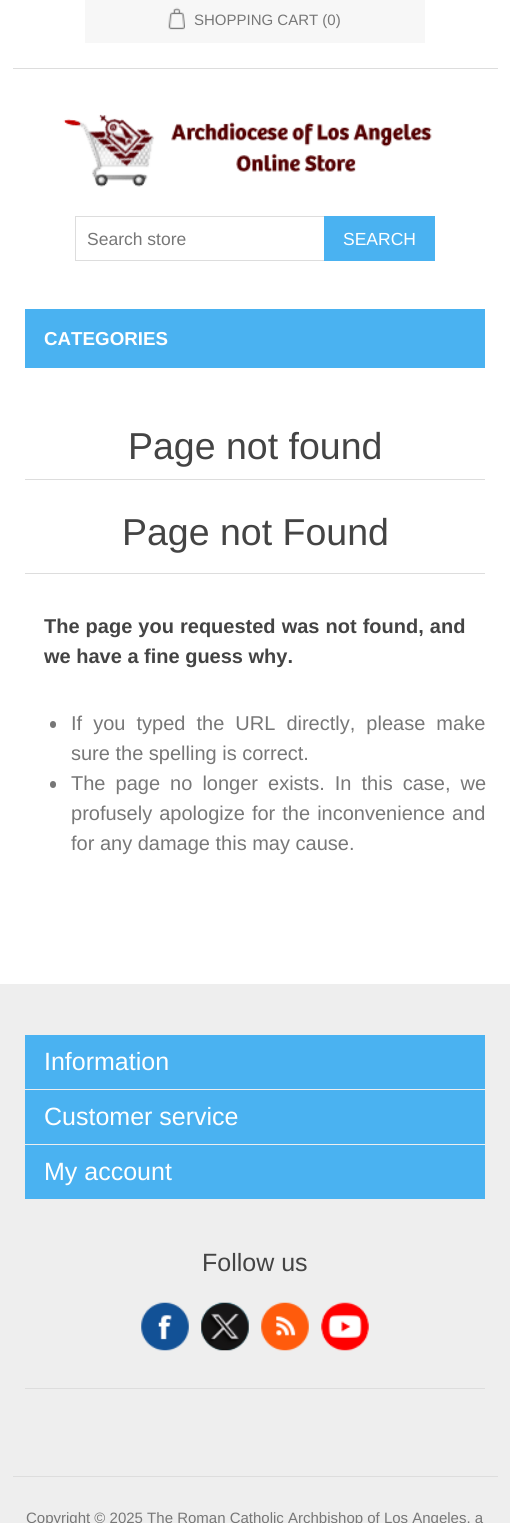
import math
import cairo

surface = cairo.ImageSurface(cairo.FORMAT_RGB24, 510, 1523)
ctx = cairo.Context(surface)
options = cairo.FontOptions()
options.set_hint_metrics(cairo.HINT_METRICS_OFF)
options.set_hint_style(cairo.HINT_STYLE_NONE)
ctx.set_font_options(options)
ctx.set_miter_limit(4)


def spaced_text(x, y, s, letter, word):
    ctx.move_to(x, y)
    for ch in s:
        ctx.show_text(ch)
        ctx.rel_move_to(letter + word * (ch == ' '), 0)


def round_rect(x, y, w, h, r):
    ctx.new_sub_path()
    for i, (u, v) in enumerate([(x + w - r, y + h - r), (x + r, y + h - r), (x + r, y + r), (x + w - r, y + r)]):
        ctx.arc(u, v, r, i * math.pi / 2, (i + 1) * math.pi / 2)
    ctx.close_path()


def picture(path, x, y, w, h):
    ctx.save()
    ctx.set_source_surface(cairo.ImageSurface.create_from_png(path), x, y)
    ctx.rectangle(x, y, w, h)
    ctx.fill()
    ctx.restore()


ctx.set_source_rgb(1, 1, 1)
ctx.paint()
ctx.set_source_rgb(0.867, 0.867, 0.867)
ctx.rectangle(13, 68, 485, 1)
ctx.fill()
ctx.set_source_rgb(0.965, 0.965, 0.965)
ctx.rectangle(85, 0, 340, 43)
ctx.fill()
picture("img1.png", 168, 7, 17, 23)
ctx.select_font_face("Liberation Sans")
ctx.set_font_size(15)
ctx.set_source_rgb(0.467, 0.467, 0.467)
ctx.move_to(194, 25)
ctx.show_text("SHOPPING CART (0)")
picture("img2.png", 63, 114, 369, 73)
ctx.rectangle(75.5, 216.5, 249, 44)
ctx.set_source_rgb(0.867, 0.867, 0.867)
ctx.set_line_width(1)
ctx.stroke()
ctx.set_font_size(17.5)
ctx.set_source_rgb(0.467, 0.467, 0.467)
ctx.move_to(87, 245)
ctx.show_text("Search store")
ctx.set_source_rgb(0.29, 0.698, 0.945)
ctx.rectangle(324, 216, 111, 45)
ctx.fill()
ctx.set_source_rgb(1, 1, 1)
ctx.move_to(343, 245)
ctx.show_text("SEARCH")
ctx.set_source_rgb(0.29, 0.698, 0.945)
ctx.rectangle(25, 309, 460, 59)
ctx.fill()
ctx.select_font_face("Liberation Sans", cairo.FONT_SLANT_NORMAL, cairo.FONT_WEIGHT_BOLD)
ctx.set_font_size(18.75)
ctx.set_source_rgb(1, 1, 1)
ctx.move_to(44, 345)
ctx.show_text("CATEGORIES")
ctx.set_source_rgb(0.867, 0.867, 0.867)
ctx.rectangle(25, 479, 460, 1)
ctx.fill()
ctx.select_font_face("Liberation Sans")
ctx.set_font_size(37.5)
ctx.set_source_rgb(0.267, 0.267, 0.267)
ctx.move_to(128, 459)
ctx.show_text("Page not found")
ctx.set_source_rgb(0.867, 0.867, 0.867)
ctx.rectangle(25, 573, 460, 1)
ctx.fill()
ctx.set_source_rgb(0.267, 0.267, 0.267)
ctx.move_to(122, 545)
ctx.show_text("Page not Found")
ctx.select_font_face("Liberation Sans", cairo.FONT_SLANT_NORMAL, cairo.FONT_WEIGHT_BOLD)
ctx.set_font_size(20)
spaced_text(44, 633, "The page you requested was not found, and", 0, 0.5)
ctx.move_to(44, 663)
ctx.show_text("we have a fine guess why.")
ctx.set_source_rgb(0.467, 0.467, 0.467)
round_rect(50, 721, 6, 7, 3)
ctx.fill()
ctx.select_font_face("Liberation Sans")
spaced_text(71, 730, "If you typed the URL directly, please make", 0, 5.5)
ctx.move_to(71, 760)
ctx.show_text("sure the spelling is correct.")
round_rect(50, 781, 6, 7, 3)
ctx.fill()
spaced_text(71, 790, "The page no longer exists. In this case, we", 0, 4.5)
spaced_text(71, 820, "profusely apologize for the inconvenience and", 0, 1.5)
ctx.move_to(71, 850)
ctx.show_text("for any damage this may cause.")
ctx.set_source_rgb(0.933, 0.933, 0.933)
ctx.rectangle(0, 984, 510, 539)
ctx.fill()
ctx.set_source_rgb(0.867, 0.867, 0.867)
ctx.rectangle(13, 1476, 485, 1)
ctx.fill()
ctx.set_source_rgb(0.29, 0.698, 0.945)
ctx.rectangle(25, 1035, 460, 54)
ctx.fill()
ctx.set_font_size(25)
ctx.set_source_rgb(1, 1, 1)
ctx.move_to(44, 1070)
ctx.show_text("Information")
ctx.set_source_rgb(0.29, 0.698, 0.945)
ctx.rectangle(25, 1090, 460, 54)
ctx.fill()
ctx.set_source_rgb(1, 1, 1)
ctx.move_to(44, 1125)
ctx.show_text("Customer service")
ctx.set_source_rgb(0.29, 0.698, 0.945)
ctx.rectangle(25, 1145, 460, 54)
ctx.fill()
ctx.set_source_rgb(1, 1, 1)
ctx.move_to(44, 1180)
ctx.show_text("My account")
ctx.set_source_rgb(0.267, 0.267, 0.267)
ctx.move_to(202, 1271)
ctx.show_text("Follow us")
ctx.set_source_rgb(0.867, 0.867, 0.867)
ctx.rectangle(25, 1388, 460, 1)
ctx.fill()
picture("img3.png", 141, 1302, 48, 49)
picture("img4.png", 201, 1302, 48, 49)
picture("img5.png", 261, 1302, 48, 49)
picture("img6.png", 321, 1302, 48, 49)
ctx.set_font_size(15)
ctx.set_source_rgb(0.467, 0.467, 0.467)
ctx.move_to(26, 1523)
ctx.show_text("Copyright © 2025 The Roman Catholic Archbishop of Los Angeles, a")
surface.write_to_png("page.png")
